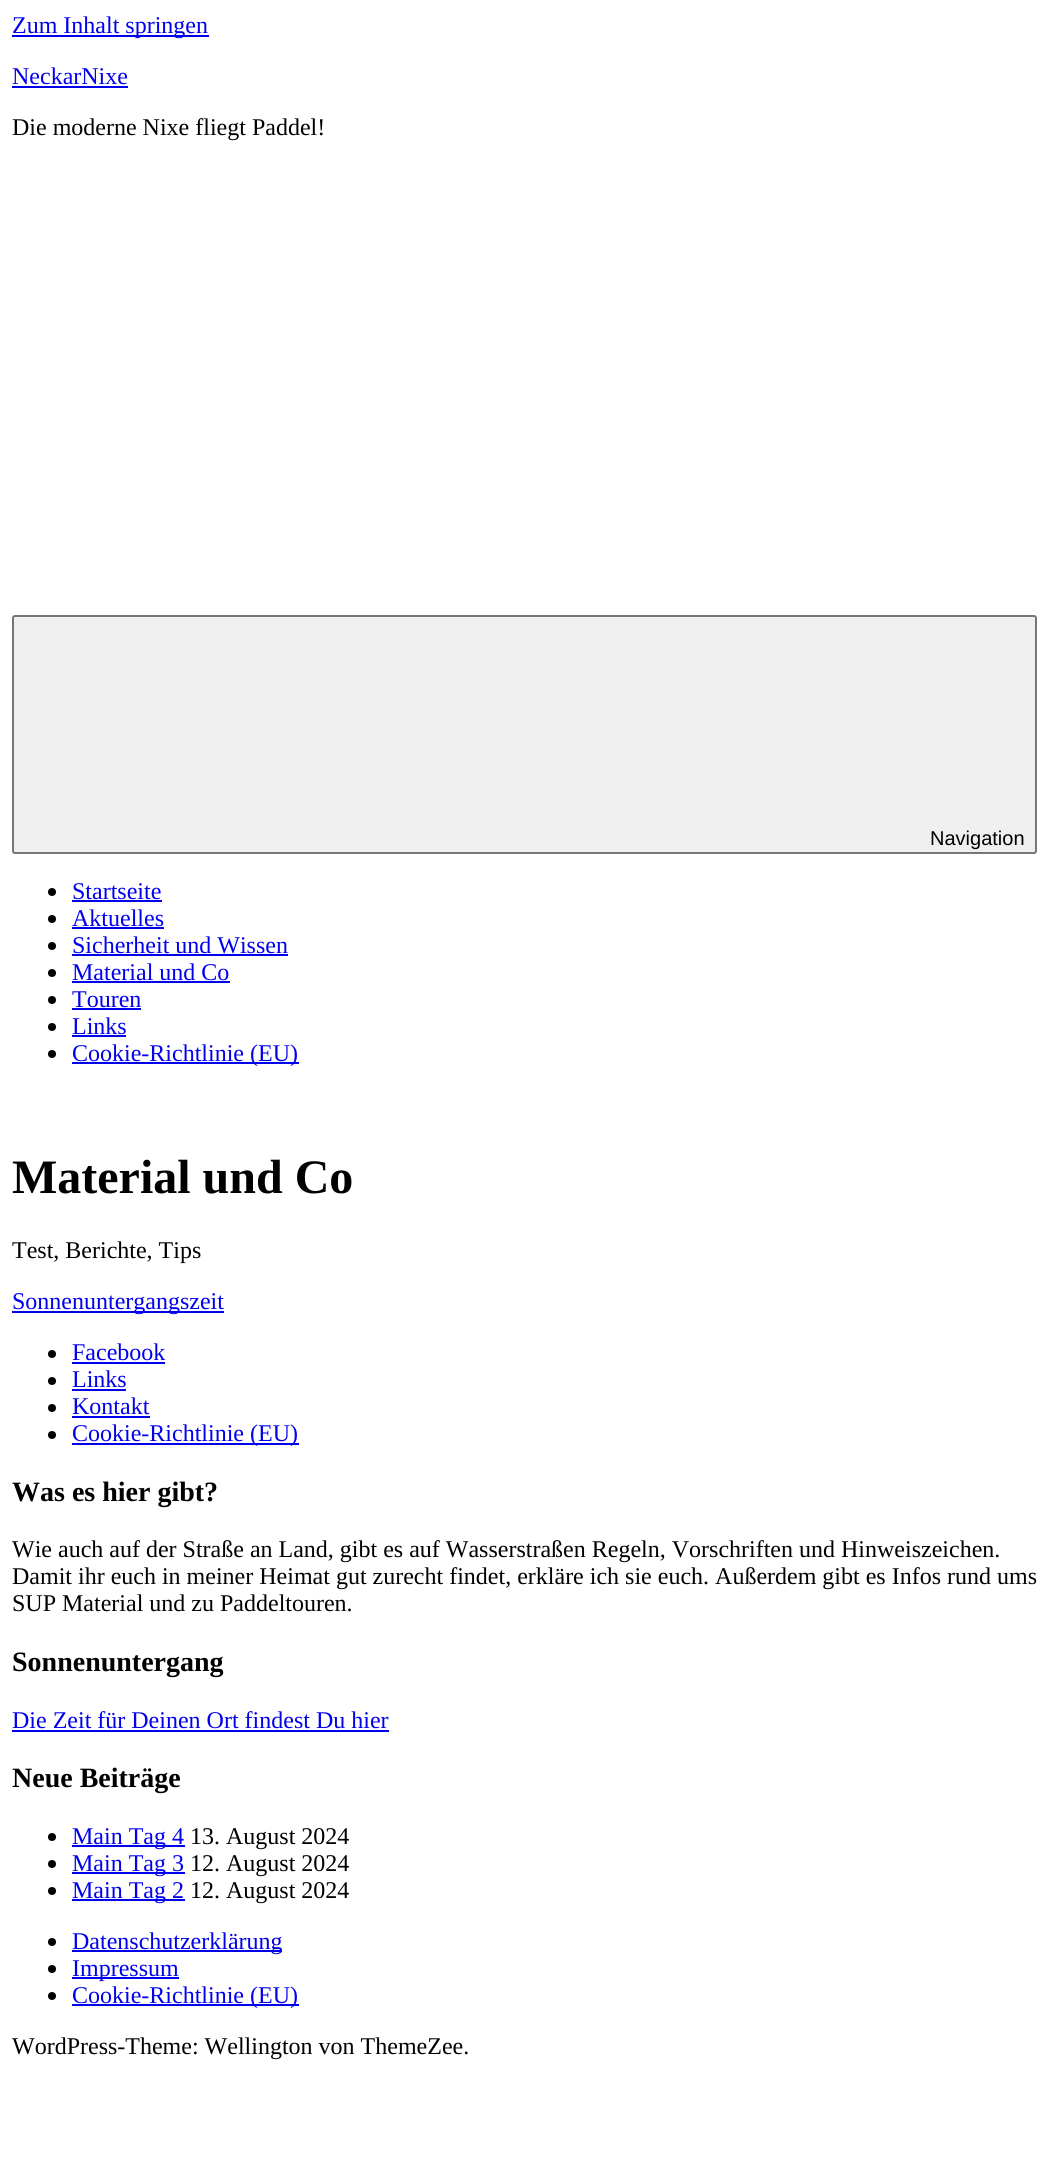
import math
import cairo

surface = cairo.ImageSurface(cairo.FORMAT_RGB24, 1050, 2157)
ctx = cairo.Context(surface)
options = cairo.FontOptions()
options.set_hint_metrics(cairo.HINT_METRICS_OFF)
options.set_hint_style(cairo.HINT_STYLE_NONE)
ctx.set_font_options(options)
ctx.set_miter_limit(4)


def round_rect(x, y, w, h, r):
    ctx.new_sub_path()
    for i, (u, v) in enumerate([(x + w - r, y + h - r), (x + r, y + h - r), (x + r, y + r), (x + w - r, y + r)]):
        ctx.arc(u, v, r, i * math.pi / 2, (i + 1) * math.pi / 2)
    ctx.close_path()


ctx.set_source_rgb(1, 1, 1)
ctx.paint()
ctx.set_source_rgb(0, 0, 0.933)
ctx.rectangle(12, 35, 197, 2)
ctx.fill()
ctx.select_font_face("Liberation Serif")
ctx.set_font_size(24)
ctx.move_to(12, 33)
ctx.show_text("Zum Inhalt springen")
ctx.move_to(12, 84)
ctx.show_text("NeckarNixe")
ctx.rectangle(12, 86, 116, 2)
ctx.fill()
ctx.set_source_rgb(0, 0, 0)
ctx.move_to(12, 135)
ctx.show_text("Die moderne Nixe fliegt Paddel!")
ctx.set_source_rgb(0.937, 0.937, 0.937)
round_rect(13, 616, 1023, 237, 2)
ctx.fill_preserve()
ctx.set_source_rgb(0.463, 0.463, 0.463)
ctx.stroke()
ctx.select_font_face("Liberation Sans")
ctx.set_font_size(20)
ctx.set_source_rgb(0, 0, 0)
ctx.move_to(930, 845)
ctx.show_text("Navigation")
ctx.new_path()
ctx.arc(52, 892, 4, 0, 2 * math.pi)
ctx.fill()
ctx.select_font_face("Liberation Serif")
ctx.set_font_size(24)
ctx.set_source_rgb(0, 0, 0.933)
ctx.move_to(72, 899)
ctx.show_text("Startseite")
ctx.rectangle(72, 900, 90, 2)
ctx.fill()
ctx.set_source_rgb(0, 0, 0)
ctx.arc(52, 919, 4, 0, 2 * math.pi)
ctx.fill()
ctx.set_source_rgb(0, 0, 0.933)
ctx.move_to(72, 926)
ctx.show_text("Aktuelles")
ctx.rectangle(72, 927, 92, 2)
ctx.fill()
ctx.set_source_rgb(0, 0, 0)
ctx.arc(52, 946, 4, 0, 2 * math.pi)
ctx.fill()
ctx.set_source_rgb(0, 0, 0.933)
ctx.move_to(72, 953)
ctx.show_text("Sicherheit und Wissen")
ctx.rectangle(72, 954, 216, 2)
ctx.fill()
ctx.set_source_rgb(0, 0, 0)
ctx.arc(52, 973, 4, 0, 2 * math.pi)
ctx.fill()
ctx.set_source_rgb(0, 0, 0.933)
ctx.move_to(72, 980)
ctx.show_text("Material und Co")
ctx.rectangle(72, 981, 158, 2)
ctx.fill()
ctx.set_source_rgb(0, 0, 0)
ctx.arc(52, 1000, 4, 0, 2 * math.pi)
ctx.fill()
ctx.set_source_rgb(0, 0, 0.933)
ctx.move_to(72, 1007)
ctx.show_text("Touren")
ctx.rectangle(72, 1008, 69, 2)
ctx.fill()
ctx.set_source_rgb(0, 0, 0)
ctx.arc(52, 1027, 4, 0, 2 * math.pi)
ctx.fill()
ctx.set_source_rgb(0, 0, 0.933)
ctx.move_to(72, 1034)
ctx.show_text("Links")
ctx.rectangle(72, 1035, 54, 2)
ctx.fill()
ctx.set_source_rgb(0, 0, 0)
ctx.arc(52, 1054, 4, 0, 2 * math.pi)
ctx.fill()
ctx.set_source_rgb(0, 0, 0.933)
ctx.rectangle(72, 1062, 227, 2)
ctx.fill()
ctx.move_to(72, 1061)
ctx.show_text("Cookie-Richtlinie (EU)")
ctx.select_font_face("Liberation Serif", cairo.FONT_SLANT_NORMAL, cairo.FONT_WEIGHT_BOLD)
ctx.set_font_size(48)
ctx.set_source_rgb(0, 0, 0)
ctx.move_to(12, 1193)
ctx.show_text("Material und Co")
ctx.select_font_face("Liberation Serif")
ctx.set_font_size(24)
ctx.move_to(12, 1258)
ctx.show_text("Test, Berichte, Tips")
ctx.set_source_rgb(0, 0, 0.933)
ctx.rectangle(12, 1311, 212, 2)
ctx.fill()
ctx.move_to(12, 1309)
ctx.show_text("Sonnenuntergangszeit")
ctx.set_source_rgb(0, 0, 0)
ctx.new_path()
ctx.arc(52, 1354, 4, 0, 2 * math.pi)
ctx.fill()
ctx.set_source_rgb(0, 0, 0.933)
ctx.move_to(72, 1360)
ctx.show_text("Facebook")
ctx.rectangle(72, 1362, 93, 2)
ctx.fill()
ctx.set_source_rgb(0, 0, 0)
ctx.arc(52, 1381, 4, 0, 2 * math.pi)
ctx.fill()
ctx.set_source_rgb(0, 0, 0.933)
ctx.move_to(72, 1387)
ctx.show_text("Links")
ctx.rectangle(72, 1389, 54, 2)
ctx.fill()
ctx.set_source_rgb(0, 0, 0)
ctx.arc(52, 1408, 4, 0, 2 * math.pi)
ctx.fill()
ctx.set_source_rgb(0, 0, 0.933)
ctx.move_to(72, 1414)
ctx.show_text("Kontakt")
ctx.rectangle(72, 1416, 78, 2)
ctx.fill()
ctx.set_source_rgb(0, 0, 0)
ctx.arc(52, 1435, 4, 0, 2 * math.pi)
ctx.fill()
ctx.set_source_rgb(0, 0, 0.933)
ctx.rectangle(72, 1443, 227, 2)
ctx.fill()
ctx.move_to(72, 1441)
ctx.show_text("Cookie-Richtlinie (EU)")
ctx.select_font_face("Liberation Serif", cairo.FONT_SLANT_NORMAL, cairo.FONT_WEIGHT_BOLD)
ctx.set_font_size(28)
ctx.set_source_rgb(0, 0, 0)
ctx.move_to(12, 1501)
ctx.show_text("Was es hier gibt?")
ctx.select_font_face("Liberation Serif")
ctx.set_font_size(24)
ctx.move_to(12, 1557)
ctx.show_text("Wie auch auf der Straße an Land, gibt es auf Wasserstraßen Regeln, Vorschriften und Hinweiszeichen.")
ctx.move_to(12, 1584)
ctx.show_text("Damit ihr euch in meiner Heimat gut zurecht findet, erkläre ich sie euch. Außerdem gibt es Infos rund ums")
ctx.move_to(12, 1611)
ctx.show_text("SUP Material und zu Paddeltouren.")
ctx.select_font_face("Liberation Serif", cairo.FONT_SLANT_NORMAL, cairo.FONT_WEIGHT_BOLD)
ctx.set_font_size(28)
ctx.move_to(12, 1671)
ctx.show_text("Sonnenuntergang")
ctx.select_font_face("Liberation Serif")
ctx.set_font_size(24)
ctx.set_source_rgb(0, 0, 0.933)
ctx.move_to(12, 1728)
ctx.show_text("Die Zeit für Deinen Ort findest Du hier")
ctx.rectangle(12, 1730, 377, 2)
ctx.fill()
ctx.select_font_face("Liberation Serif", cairo.FONT_SLANT_NORMAL, cairo.FONT_WEIGHT_BOLD)
ctx.set_font_size(28)
ctx.set_source_rgb(0, 0, 0)
ctx.move_to(12, 1787)
ctx.show_text("Neue Beiträge")
ctx.new_path()
ctx.arc(52, 1837, 4, 0, 2 * math.pi)
ctx.fill()
ctx.set_source_rgb(0, 0, 0.933)
ctx.rectangle(72, 1845, 113, 2)
ctx.fill()
ctx.select_font_face("Liberation Serif")
ctx.set_font_size(24)
ctx.move_to(72, 1844)
ctx.show_text("Main Tag 4")
ctx.set_source_rgb(0, 0, 0)
ctx.move_to(190, 1844)
ctx.show_text("13. August 2024")
ctx.new_path()
ctx.arc(52, 1864, 4, 0, 2 * math.pi)
ctx.fill()
ctx.set_source_rgb(0, 0, 0.933)
ctx.rectangle(72, 1872, 113, 2)
ctx.fill()
ctx.move_to(72, 1871)
ctx.show_text("Main Tag 3")
ctx.set_source_rgb(0, 0, 0)
ctx.move_to(190, 1871)
ctx.show_text("12. August 2024")
ctx.new_path()
ctx.arc(52, 1891, 4, 0, 2 * math.pi)
ctx.fill()
ctx.set_source_rgb(0, 0, 0.933)
ctx.rectangle(72, 1899, 113, 2)
ctx.fill()
ctx.move_to(72, 1898)
ctx.show_text("Main Tag 2")
ctx.set_source_rgb(0, 0, 0)
ctx.move_to(190, 1898)
ctx.show_text("12. August 2024")
ctx.new_path()
ctx.arc(52, 1942, 4, 0, 2 * math.pi)
ctx.fill()
ctx.set_source_rgb(0, 0, 0.933)
ctx.rectangle(72, 1950, 210, 2)
ctx.fill()
ctx.move_to(72, 1949)
ctx.show_text("Datenschutzerklärung")
ctx.set_source_rgb(0, 0, 0)
ctx.new_path()
ctx.arc(52, 1969, 4, 0, 2 * math.pi)
ctx.fill()
ctx.set_source_rgb(0, 0, 0.933)
ctx.rectangle(72, 1977, 107, 2)
ctx.fill()
ctx.move_to(72, 1976)
ctx.show_text("Impressum")
ctx.set_source_rgb(0, 0, 0)
ctx.new_path()
ctx.arc(52, 1996, 4, 0, 2 * math.pi)
ctx.fill()
ctx.set_source_rgb(0, 0, 0.933)
ctx.rectangle(72, 2004, 227, 2)
ctx.fill()
ctx.move_to(72, 2003)
ctx.show_text("Cookie-Richtlinie (EU)")
ctx.set_source_rgb(0, 0, 0)
ctx.move_to(12, 2054)
ctx.show_text("WordPress-Theme: Wellington von ThemeZee.")
surface.write_to_png("page.png")
